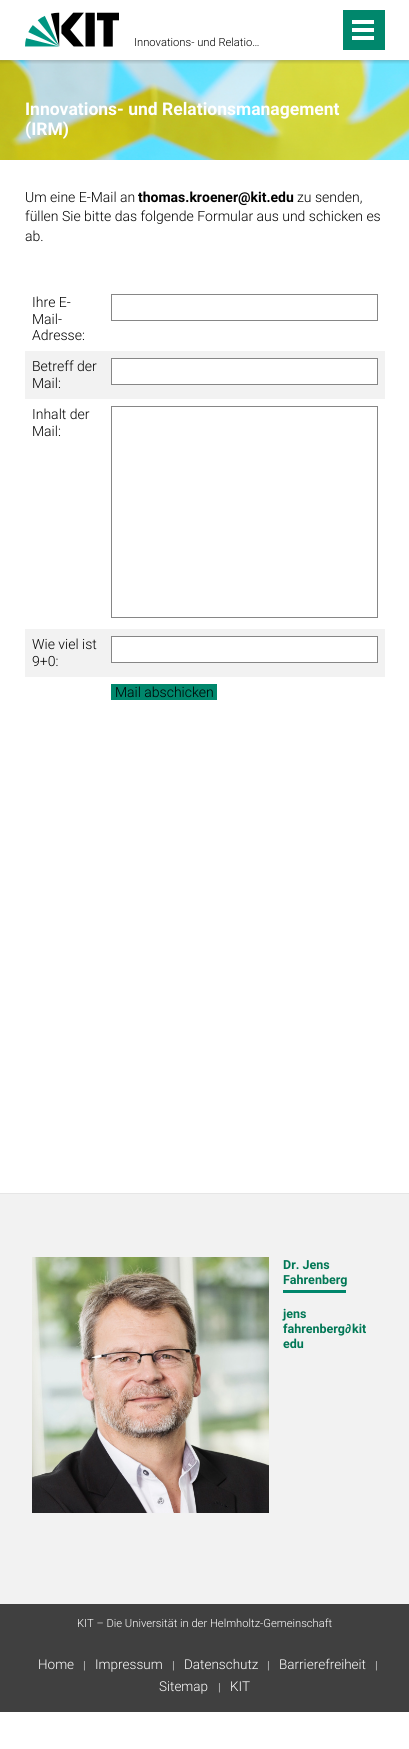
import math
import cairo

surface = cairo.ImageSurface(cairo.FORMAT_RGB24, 409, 1749)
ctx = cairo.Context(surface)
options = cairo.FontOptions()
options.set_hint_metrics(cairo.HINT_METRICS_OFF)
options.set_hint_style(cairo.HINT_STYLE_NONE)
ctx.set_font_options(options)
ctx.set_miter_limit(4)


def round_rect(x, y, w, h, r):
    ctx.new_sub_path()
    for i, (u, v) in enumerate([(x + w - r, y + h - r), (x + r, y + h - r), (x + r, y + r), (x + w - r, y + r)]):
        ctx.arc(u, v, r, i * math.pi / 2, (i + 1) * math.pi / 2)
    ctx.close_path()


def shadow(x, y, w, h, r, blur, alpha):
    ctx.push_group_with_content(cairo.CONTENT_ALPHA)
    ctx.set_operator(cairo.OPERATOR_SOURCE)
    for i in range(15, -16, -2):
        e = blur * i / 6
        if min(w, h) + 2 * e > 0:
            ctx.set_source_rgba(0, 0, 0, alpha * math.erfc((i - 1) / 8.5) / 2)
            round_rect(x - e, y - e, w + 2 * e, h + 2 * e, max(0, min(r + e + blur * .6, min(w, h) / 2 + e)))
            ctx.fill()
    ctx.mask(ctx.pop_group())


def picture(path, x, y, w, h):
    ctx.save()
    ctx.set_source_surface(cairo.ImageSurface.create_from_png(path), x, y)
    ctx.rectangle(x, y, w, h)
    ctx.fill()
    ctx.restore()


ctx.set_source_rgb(1, 1, 1)
ctx.paint()
picture("img2.png", 0, 60, 409, 100)
ctx.save()
ctx.rectangle(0, 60, 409, 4)
ctx.clip()
ctx.set_source_rgb(0.251, 0.251, 0.251)
shadow(0, 0, 409, 60, 0, 2.5, 0.5)
ctx.restore()
picture("img1.png", 25, 12, 94, 35)
ctx.select_font_face("Roboto Light")
ctx.set_font_size(11.2)
ctx.set_source_rgb(0, 0, 0)
ctx.move_to(134, 46)
ctx.show_text("Innovations- und Relatio…")
ctx.set_source_rgb(0, 0.529, 0.424)
ctx.rectangle(343, 10, 42, 40)
ctx.fill()
ctx.set_source_rgb(1, 1, 1)
ctx.rectangle(352, 36, 22, 4)
ctx.fill()
ctx.rectangle(352, 28, 22, 4)
ctx.fill()
ctx.rectangle(352, 20, 22, 4)
ctx.fill()
ctx.select_font_face("Roboto", cairo.FONT_SLANT_NORMAL, cairo.FONT_WEIGHT_BOLD)
ctx.set_font_size(17.5)
ctx.move_to(25, 115)
ctx.show_text("Innovations- und Relationsmanagement")
ctx.move_to(25, 135)
ctx.show_text("(IRM)")
ctx.select_font_face("Roboto Light")
ctx.set_font_size(14)
ctx.set_source_rgb(0, 0, 0)
ctx.move_to(25, 202)
ctx.show_text("Um eine E-Mail an")
ctx.select_font_face("Roboto", cairo.FONT_SLANT_NORMAL, cairo.FONT_WEIGHT_BOLD)
ctx.move_to(138, 202)
ctx.show_text("thomas.kroener@kit.edu")
ctx.select_font_face("Roboto Light")
ctx.move_to(297, 202)
ctx.show_text("zu senden,")
ctx.move_to(25, 221)
ctx.show_text("füllen Sie bitte das folgende Formular aus und schicken es")
ctx.move_to(25, 241)
ctx.show_text("ab.")
ctx.move_to(32, 307)
ctx.show_text("Ihre E-")
ctx.move_to(32, 324)
ctx.show_text("Mail-")
ctx.move_to(32, 340)
ctx.show_text("Adresse:")
ctx.rectangle(111.5, 294.5, 266, 26)
ctx.set_source_rgb(0.525, 0.525, 0.525)
ctx.set_line_width(1)
ctx.stroke()
ctx.set_source_rgb(0.949, 0.949, 0.949)
ctx.rectangle(25, 351, 360, 48)
ctx.fill()
ctx.set_source_rgb(0, 0, 0)
ctx.move_to(32, 371)
ctx.show_text("Betreff der")
ctx.move_to(32, 388)
ctx.show_text("Mail:")
ctx.set_source_rgb(1, 1, 1)
ctx.rectangle(111.5, 358.5, 266, 26)
ctx.fill_preserve()
ctx.set_source_rgb(0.525, 0.525, 0.525)
ctx.stroke()
ctx.set_source_rgb(0, 0, 0)
ctx.move_to(32, 419)
ctx.show_text("Inhalt der")
ctx.move_to(32, 436)
ctx.show_text("Mail:")
ctx.rectangle(111.5, 406.5, 266, 211)
ctx.set_source_rgb(0.525, 0.525, 0.525)
ctx.stroke()
ctx.set_source_rgb(0.949, 0.949, 0.949)
ctx.rectangle(25, 629, 360, 48)
ctx.fill()
ctx.set_source_rgb(0, 0, 0)
ctx.move_to(32, 649)
ctx.show_text("Wie viel ist")
ctx.move_to(32, 666)
ctx.show_text("9+0:")
ctx.set_source_rgb(1, 1, 1)
ctx.rectangle(111.5, 636.5, 266, 26)
ctx.fill_preserve()
ctx.set_source_rgb(0.525, 0.525, 0.525)
ctx.stroke()
ctx.set_source_rgb(0, 0.529, 0.424)
ctx.rectangle(111, 684, 106, 16)
ctx.fill()
ctx.set_source_rgb(0, 0, 0)
ctx.move_to(115, 697)
ctx.show_text("Mail abschicken")
ctx.set_source_rgb(0.949, 0.949, 0.949)
ctx.rectangle(0, 1194, 409, 410)
ctx.fill()
ctx.set_source_rgb(0.902, 0.902, 0.902)
ctx.rectangle(0, 1193, 409, 1)
ctx.fill()
picture("img3.png", 32, 1257, 237, 256)
ctx.select_font_face("Roboto", cairo.FONT_SLANT_NORMAL, cairo.FONT_WEIGHT_BOLD)
ctx.set_font_size(12.5)
ctx.set_source_rgb(0, 0.467, 0.333)
ctx.move_to(283, 1269)
ctx.show_text("Dr. Jens")
ctx.move_to(283, 1284)
ctx.show_text("Fahrenberg")
ctx.set_source_rgb(0, 0.529, 0.424)
ctx.rectangle(283, 1290, 63, 3)
ctx.fill()
ctx.set_source_rgb(0, 0.467, 0.333)
ctx.move_to(283, 1318)
ctx.show_text("jens")
ctx.move_to(283, 1333)
ctx.show_text("fahrenberg")
ctx.select_font_face("Liberation Sans", cairo.FONT_SLANT_NORMAL, cairo.FONT_WEIGHT_BOLD)
ctx.move_to(345, 1333)
ctx.show_text("∂")
ctx.select_font_face("Roboto", cairo.FONT_SLANT_NORMAL, cairo.FONT_WEIGHT_BOLD)
ctx.move_to(352, 1333)
ctx.show_text("kit")
ctx.move_to(283, 1348)
ctx.show_text("edu")
ctx.set_source_rgb(0.251, 0.251, 0.251)
ctx.rectangle(0, 1604, 409, 108)
ctx.fill()
ctx.select_font_face("Roboto Light")
ctx.set_font_size(11.2)
ctx.set_source_rgb(1, 1, 1)
ctx.move_to(77, 1627)
ctx.show_text("KIT – Die Universität in der Helmholtz-Gemeinschaft")
ctx.set_font_size(13.5)
ctx.move_to(38, 1669)
ctx.show_text("Home")
ctx.set_font_size(11.2)
ctx.move_to(83, 1669)
ctx.show_text("|")
ctx.set_font_size(13.5)
ctx.move_to(95, 1669)
ctx.show_text("Impressum")
ctx.set_font_size(11.2)
ctx.move_to(172, 1669)
ctx.show_text("|")
ctx.set_font_size(13.5)
ctx.move_to(184, 1669)
ctx.show_text("Datenschutz")
ctx.set_font_size(11.2)
ctx.move_to(267, 1669)
ctx.show_text("|")
ctx.set_font_size(13.5)
ctx.move_to(279, 1669)
ctx.show_text("Barrierefreiheit")
ctx.set_font_size(11.2)
ctx.move_to(375, 1669)
ctx.show_text("|")
ctx.set_font_size(13.5)
ctx.move_to(159, 1691)
ctx.show_text("Sitemap")
ctx.set_font_size(11.2)
ctx.move_to(218, 1691)
ctx.show_text("|")
ctx.set_font_size(13.5)
ctx.move_to(230, 1691)
ctx.show_text("KIT")
surface.write_to_png("page.png")
